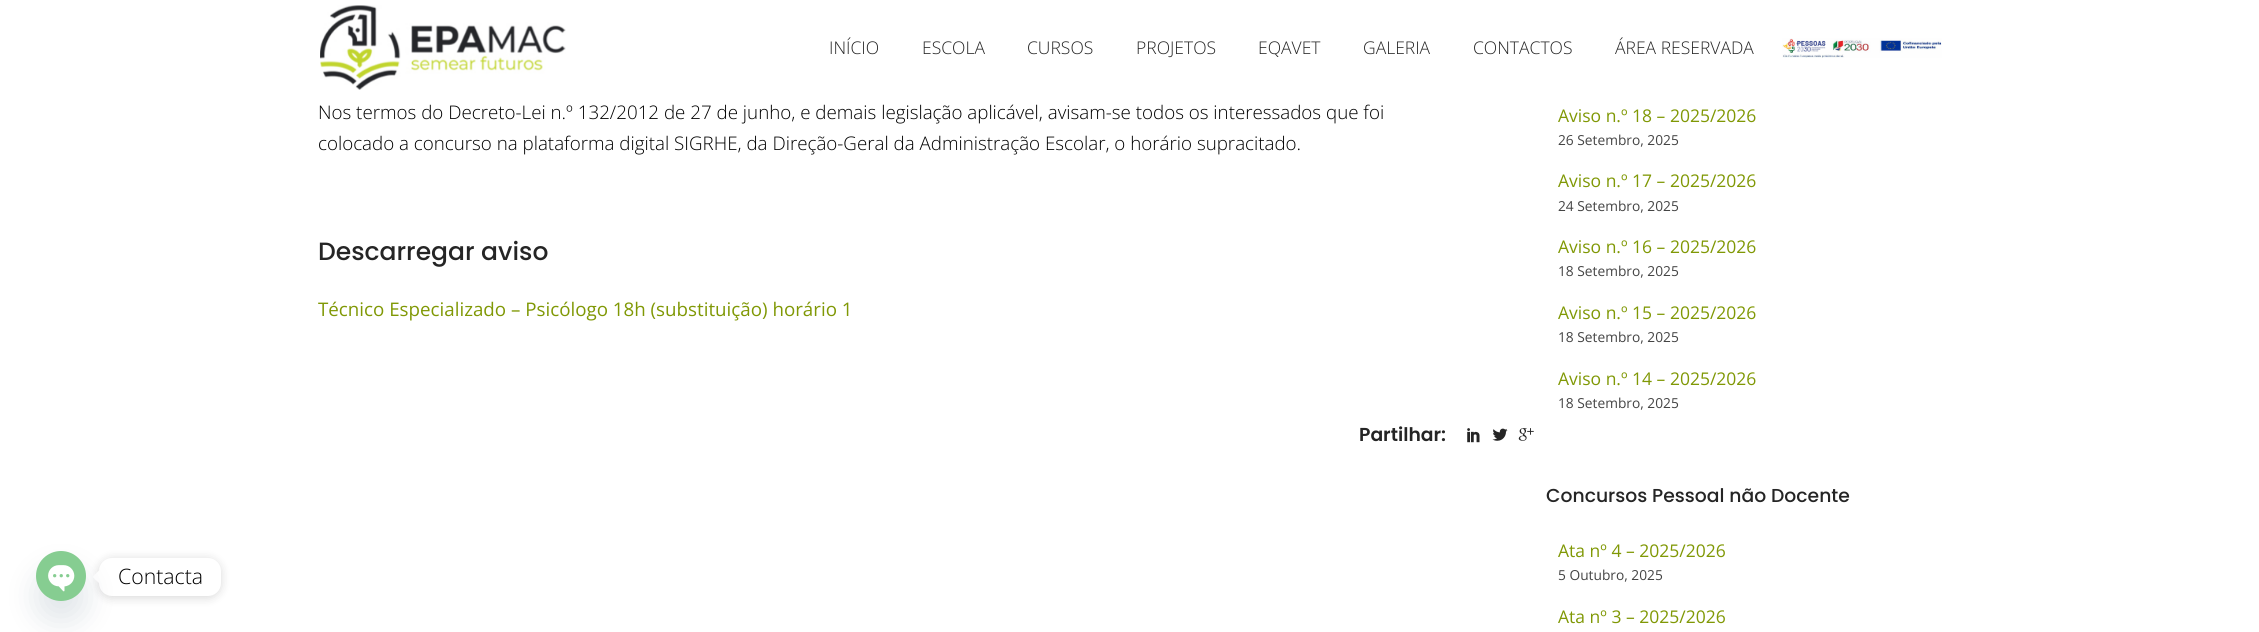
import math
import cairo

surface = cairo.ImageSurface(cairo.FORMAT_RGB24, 2259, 632)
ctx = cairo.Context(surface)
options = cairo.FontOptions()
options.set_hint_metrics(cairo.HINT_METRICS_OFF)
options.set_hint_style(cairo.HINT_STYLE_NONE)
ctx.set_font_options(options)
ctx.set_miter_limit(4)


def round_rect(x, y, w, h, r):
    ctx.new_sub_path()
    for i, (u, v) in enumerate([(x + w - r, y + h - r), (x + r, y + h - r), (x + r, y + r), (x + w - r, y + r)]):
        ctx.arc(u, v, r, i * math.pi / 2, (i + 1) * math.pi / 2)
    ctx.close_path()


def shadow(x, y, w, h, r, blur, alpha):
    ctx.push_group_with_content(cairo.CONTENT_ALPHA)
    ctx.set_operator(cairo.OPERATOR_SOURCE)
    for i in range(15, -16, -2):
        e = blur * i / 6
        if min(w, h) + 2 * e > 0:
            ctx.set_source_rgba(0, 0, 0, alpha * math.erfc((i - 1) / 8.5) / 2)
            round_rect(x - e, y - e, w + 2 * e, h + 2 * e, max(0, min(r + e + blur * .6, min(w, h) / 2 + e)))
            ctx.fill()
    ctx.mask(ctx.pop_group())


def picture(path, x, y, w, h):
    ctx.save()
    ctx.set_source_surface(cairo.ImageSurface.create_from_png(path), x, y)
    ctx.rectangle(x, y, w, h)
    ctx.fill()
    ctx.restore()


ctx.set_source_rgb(1, 1, 1)
ctx.paint()
ctx.set_source_rgb(0, 0, 0)
shadow(99, 559, 122, 39, 13, 5, 0.15)
ctx.set_source_rgb(1, 1, 1)
round_rect(99, 558, 122, 38, 13)
ctx.fill()
ctx.new_path()
ctx.move_to(99, 570.5)
ctx.line_to(99, 583)
ctx.line_to(92.5, 577)
ctx.close_path()
ctx.fill()
ctx.set_source_rgb(0.286, 0.408, 0.494)
shadow(36, 571, 50, 50, 25, 15, 0.16)
picture("img1.png", 36, 551, 50, 50)
ctx.select_font_face("Open Sans Light")
ctx.set_font_size(21.25)
ctx.set_source_rgb(0, 0, 0)
ctx.move_to(118, 584)
ctx.show_text("Contacta")
picture("img2.png", 320, 5, 246, 85)
ctx.set_font_size(17.5)
ctx.set_source_rgb(0.145, 0.145, 0.145)
ctx.move_to(829, 54)
ctx.show_text("INÍCIO")
ctx.move_to(922, 54)
ctx.show_text("ESCOLA")
ctx.move_to(1027, 54)
ctx.show_text("CURSOS")
ctx.move_to(1136, 54)
ctx.show_text("PROJETOS")
ctx.move_to(1258, 54)
ctx.show_text("EQAVET")
ctx.move_to(1363, 54)
ctx.show_text("GALERIA")
ctx.move_to(1473, 54)
ctx.show_text("CONTACTOS")
ctx.move_to(1615, 54)
ctx.show_text("ÁREA RESERVADA")
picture("img3.png", 1782, 38, 160, 20)
ctx.set_font_size(18.75)
ctx.set_source_rgb(0, 0, 0)
ctx.move_to(318, 119)
ctx.show_text("Nos termos do Decreto-Lei n.º 132/2012 de 27 de junho, e demais legislação aplicável, avisam-se todos os interessados que foi")
ctx.move_to(318, 150)
ctx.show_text("colocado a concurso na plataforma digital SIGRHE, da Direção-Geral da Administração Escolar, o horário supracitado.")
ctx.select_font_face("Poppins Medium")
ctx.set_font_size(25)
ctx.set_source_rgb(0.145, 0.145, 0.145)
ctx.move_to(318, 260)
ctx.show_text("Descarregar aviso")
ctx.select_font_face("Open Sans")
ctx.set_font_size(18.75)
ctx.set_source_rgb(0.502, 0.596, 0.02)
ctx.move_to(318, 316)
ctx.show_text("Técnico Especializado – Psicólogo 18h (substituição) horário 1")
ctx.select_font_face("Poppins SemiBold")
ctx.set_source_rgb(0.145, 0.145, 0.145)
ctx.move_to(1359, 441)
ctx.show_text("Partilhar:")
picture("img4.png", 1467, 428, 13, 15)
picture("img5.png", 1492, 428, 16, 13)
picture("img6.png", 1518, 428, 16, 13)
ctx.select_font_face("Open Sans")
ctx.set_font_size(17.5)
ctx.set_source_rgb(0.502, 0.596, 0.02)
ctx.move_to(1558, 122)
ctx.show_text("Aviso n.º 18 – 2025/2026")
ctx.set_font_size(13.75)
ctx.set_source_rgb(0.267, 0.267, 0.267)
ctx.move_to(1558, 145)
ctx.show_text("26 Setembro, 2025")
ctx.set_font_size(17.5)
ctx.set_source_rgb(0.502, 0.596, 0.02)
ctx.move_to(1558, 187)
ctx.show_text("Aviso n.º 17 – 2025/2026")
ctx.set_font_size(13.75)
ctx.set_source_rgb(0.267, 0.267, 0.267)
ctx.move_to(1558, 211)
ctx.show_text("24 Setembro, 2025")
ctx.set_font_size(17.5)
ctx.set_source_rgb(0.502, 0.596, 0.02)
ctx.move_to(1558, 253)
ctx.show_text("Aviso n.º 16 – 2025/2026")
ctx.set_font_size(13.75)
ctx.set_source_rgb(0.267, 0.267, 0.267)
ctx.move_to(1558, 276)
ctx.show_text("18 Setembro, 2025")
ctx.set_font_size(17.5)
ctx.set_source_rgb(0.502, 0.596, 0.02)
ctx.move_to(1558, 319)
ctx.show_text("Aviso n.º 15 – 2025/2026")
ctx.set_font_size(13.75)
ctx.set_source_rgb(0.267, 0.267, 0.267)
ctx.move_to(1558, 342)
ctx.show_text("18 Setembro, 2025")
ctx.set_font_size(17.5)
ctx.set_source_rgb(0.502, 0.596, 0.02)
ctx.move_to(1558, 385)
ctx.show_text("Aviso n.º 14 – 2025/2026")
ctx.set_font_size(13.75)
ctx.set_source_rgb(0.267, 0.267, 0.267)
ctx.move_to(1558, 408)
ctx.show_text("18 Setembro, 2025")
ctx.select_font_face("Poppins Medium")
ctx.set_font_size(18.75)
ctx.set_source_rgb(0.145, 0.145, 0.145)
ctx.move_to(1546, 502)
ctx.show_text("Concursos Pessoal não Docente")
ctx.select_font_face("Open Sans")
ctx.set_font_size(17.5)
ctx.set_source_rgb(0.502, 0.596, 0.02)
ctx.move_to(1558, 557)
ctx.show_text("Ata nº 4 – 2025/2026")
ctx.set_font_size(13.75)
ctx.set_source_rgb(0.267, 0.267, 0.267)
ctx.move_to(1558, 580)
ctx.show_text("5 Outubro, 2025")
ctx.set_font_size(17.5)
ctx.set_source_rgb(0.502, 0.596, 0.02)
ctx.move_to(1558, 623)
ctx.show_text("Ata nº 3 – 2025/2026")
surface.write_to_png("page.png")
